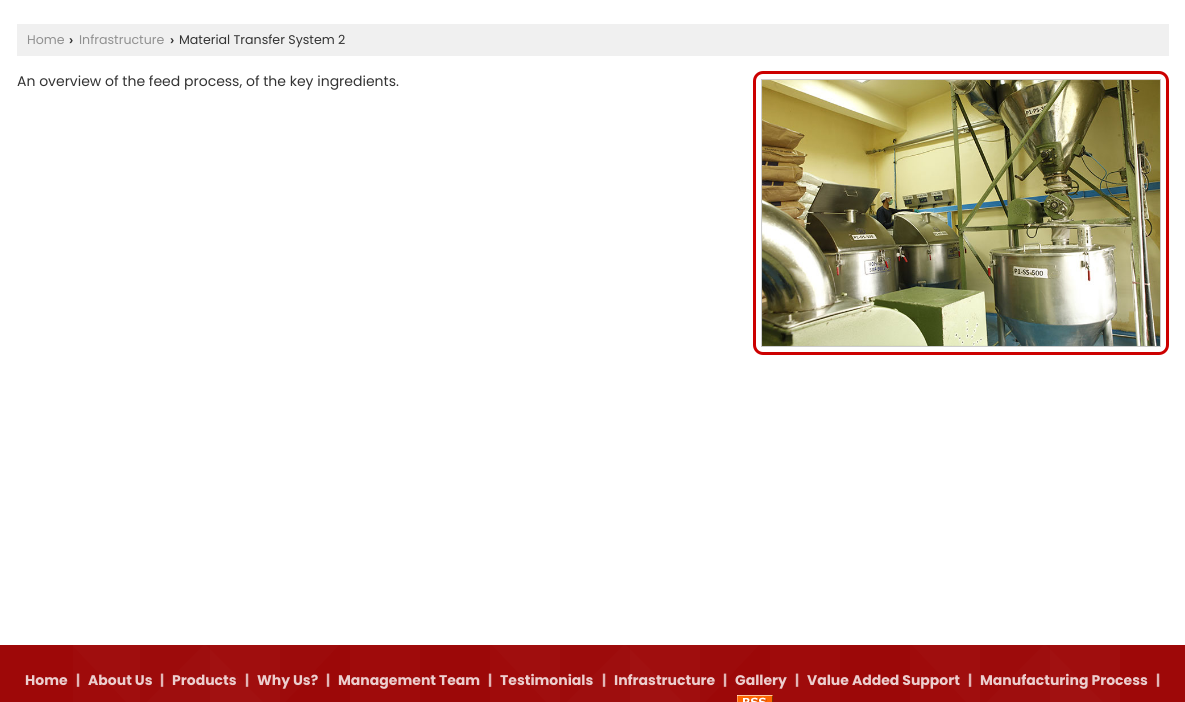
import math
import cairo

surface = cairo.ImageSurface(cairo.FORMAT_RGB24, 1185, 702)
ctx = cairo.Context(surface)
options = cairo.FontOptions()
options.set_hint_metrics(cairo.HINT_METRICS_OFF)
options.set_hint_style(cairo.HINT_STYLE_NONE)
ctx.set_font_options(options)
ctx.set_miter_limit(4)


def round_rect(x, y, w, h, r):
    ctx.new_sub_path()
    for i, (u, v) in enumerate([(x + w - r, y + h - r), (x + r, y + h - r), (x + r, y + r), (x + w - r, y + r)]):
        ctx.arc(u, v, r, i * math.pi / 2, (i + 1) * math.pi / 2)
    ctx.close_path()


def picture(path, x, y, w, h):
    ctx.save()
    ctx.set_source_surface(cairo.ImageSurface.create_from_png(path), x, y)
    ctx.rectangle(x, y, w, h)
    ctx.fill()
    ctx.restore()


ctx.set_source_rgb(1, 1, 1)
ctx.paint()
ctx.set_source_rgb(0.941, 0.941, 0.941)
ctx.rectangle(17, 24, 1152, 32)
ctx.fill()
ctx.select_font_face("Poppins")
ctx.set_font_size(12.6)
ctx.set_source_rgb(0.565, 0.565, 0.565)
ctx.move_to(27, 44)
ctx.show_text("Home")
ctx.select_font_face("Liberation Sans", cairo.FONT_SLANT_NORMAL, cairo.FONT_WEIGHT_BOLD)
ctx.set_source_rgb(0.2, 0.2, 0.2)
ctx.move_to(69, 44)
ctx.show_text("›")
ctx.select_font_face("Poppins")
ctx.set_source_rgb(0.565, 0.565, 0.565)
ctx.move_to(79, 44)
ctx.show_text("Infrastructure")
ctx.select_font_face("Liberation Sans", cairo.FONT_SLANT_NORMAL, cairo.FONT_WEIGHT_BOLD)
ctx.set_source_rgb(0.2, 0.2, 0.2)
ctx.move_to(170, 44)
ctx.show_text("›")
ctx.select_font_face("Poppins")
ctx.move_to(179, 44)
ctx.show_text("Material Transfer System 2")
ctx.set_font_size(14)
ctx.move_to(17, 86)
ctx.show_text("An overview of the feed process, of the key ingredients.")
round_rect(754.5, 72.5, 413, 281, 8.5)
ctx.set_source_rgb(0.8, 0, 0)
ctx.set_line_width(3)
ctx.stroke()
ctx.rectangle(761.5, 79.5, 399, 267)
ctx.set_source_rgb(0.8, 0.8, 0.8)
ctx.set_line_width(1)
ctx.stroke()
picture("img1.png", 762, 80, 398, 266)
ctx.set_source_rgb(0.62, 0.035, 0.035)
ctx.rectangle(0, 645, 1185, 57)
ctx.fill()
picture("img2.png", 73, 645, 1047, 57)
ctx.select_font_face("Poppins", cairo.FONT_SLANT_NORMAL, cairo.FONT_WEIGHT_BOLD)
ctx.set_source_rgb(0.925, 0.808, 0.808)
ctx.move_to(25, 685)
ctx.show_text("Home")
ctx.set_source_rgb(0.886, 0.714, 0.714)
ctx.move_to(76, 685)
ctx.show_text("|")
ctx.set_source_rgb(0.925, 0.808, 0.808)
ctx.move_to(88, 685)
ctx.show_text("About Us")
ctx.set_source_rgb(0.886, 0.714, 0.714)
ctx.move_to(160, 685)
ctx.show_text("|")
ctx.set_source_rgb(0.925, 0.808, 0.808)
ctx.move_to(172, 685)
ctx.show_text("Products")
ctx.set_source_rgb(0.886, 0.714, 0.714)
ctx.move_to(245, 685)
ctx.show_text("|")
ctx.set_source_rgb(0.925, 0.808, 0.808)
ctx.move_to(257, 685)
ctx.show_text("Why Us?")
ctx.set_source_rgb(0.886, 0.714, 0.714)
ctx.move_to(326, 685)
ctx.show_text("|")
ctx.set_source_rgb(0.925, 0.808, 0.808)
ctx.move_to(338, 685)
ctx.show_text("Management Team")
ctx.set_source_rgb(0.886, 0.714, 0.714)
ctx.move_to(488, 685)
ctx.show_text("|")
ctx.set_source_rgb(0.925, 0.808, 0.808)
ctx.move_to(500, 685)
ctx.show_text("Testimonials")
ctx.set_source_rgb(0.886, 0.714, 0.714)
ctx.move_to(602, 685)
ctx.show_text("|")
ctx.set_source_rgb(0.925, 0.808, 0.808)
ctx.move_to(614, 685)
ctx.show_text("Infrastructure")
ctx.set_source_rgb(0.886, 0.714, 0.714)
ctx.move_to(723, 685)
ctx.show_text("|")
ctx.set_source_rgb(0.925, 0.808, 0.808)
ctx.move_to(735, 685)
ctx.show_text("Gallery")
ctx.set_source_rgb(0.886, 0.714, 0.714)
ctx.move_to(795, 685)
ctx.show_text("|")
ctx.set_source_rgb(0.925, 0.808, 0.808)
ctx.move_to(807, 685)
ctx.show_text("Value Added Support")
ctx.set_source_rgb(0.886, 0.714, 0.714)
ctx.move_to(968, 685)
ctx.show_text("|")
ctx.set_source_rgb(0.925, 0.808, 0.808)
ctx.move_to(980, 685)
ctx.show_text("Manufacturing Process")
ctx.set_source_rgb(0.886, 0.714, 0.714)
ctx.move_to(1156, 685)
ctx.show_text("|")
picture("img3.png", 737, 695, 36, 7)
surface.write_to_png("page.png")
